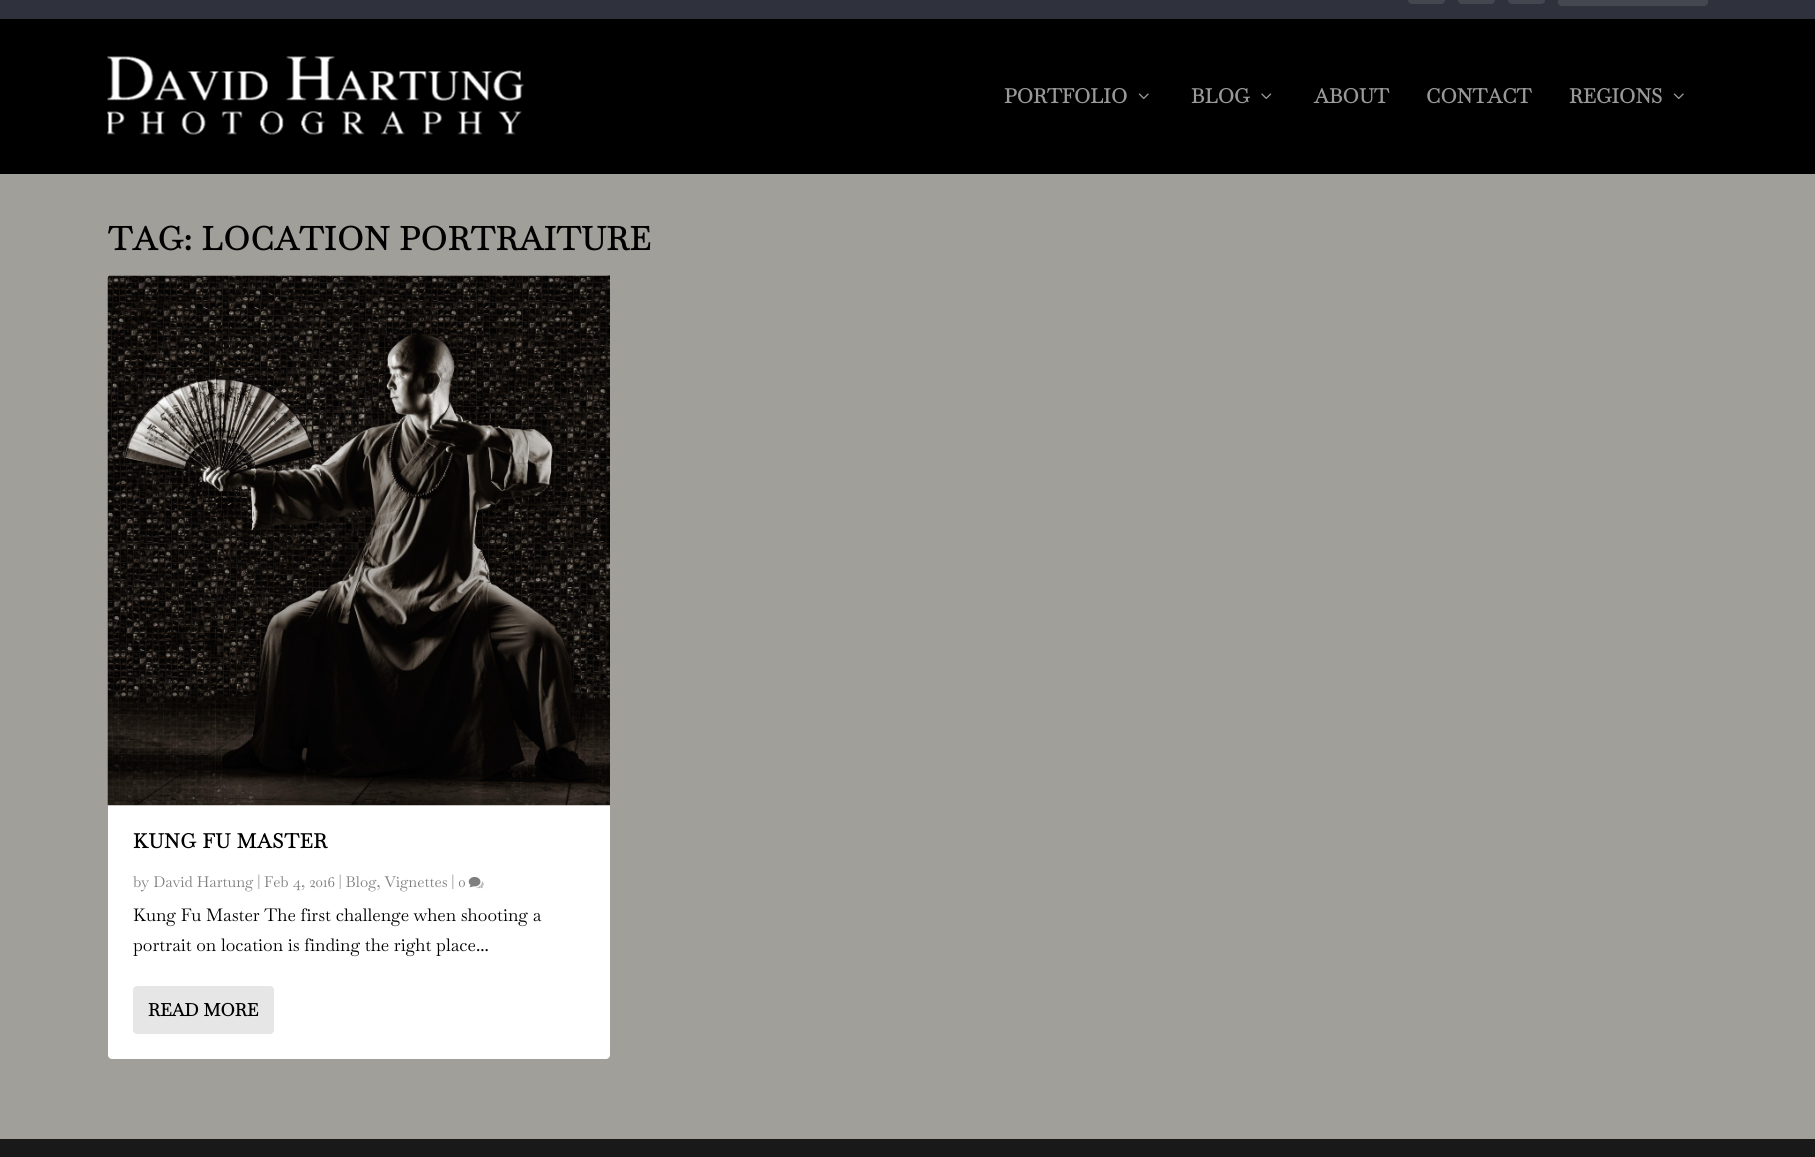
import math
import cairo

surface = cairo.ImageSurface(cairo.FORMAT_RGB24, 1815, 1157)
ctx = cairo.Context(surface)
options = cairo.FontOptions()
options.set_hint_metrics(cairo.HINT_METRICS_OFF)
options.set_hint_style(cairo.HINT_STYLE_NONE)
ctx.set_font_options(options)
ctx.set_miter_limit(4)


def spaced_text(x, y, s, letter, word):
    ctx.move_to(x, y)
    for ch in s:
        ctx.show_text(ch)
        ctx.rel_move_to(letter + word * (ch == ' '), 0)


def round_rect(x, y, w, h, r):
    ctx.new_sub_path()
    for i, (u, v) in enumerate([(x + w - r, y + h - r), (x + r, y + h - r), (x + r, y + r), (x + w - r, y + r)]):
        ctx.arc(u, v, r, i * math.pi / 2, (i + 1) * math.pi / 2)
    ctx.close_path()


def picture(path, x, y, w, h):
    ctx.save()
    ctx.set_source_surface(cairo.ImageSurface.create_from_png(path), x, y)
    ctx.rectangle(x, y, w, h)
    ctx.fill()
    ctx.restore()


ctx.set_source_rgb(0.627, 0.624, 0.604)
ctx.paint()
ctx.set_source_rgb(0.184, 0.196, 0.239)
ctx.rectangle(0, 0, 1815, 19)
ctx.fill()
ctx.set_source_rgb(0.267, 0.278, 0.314)
round_rect(1408, -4, 37, 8, 4)
ctx.fill()
round_rect(1458, -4, 37, 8, 4)
ctx.fill()
round_rect(1508, -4, 37, 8, 4)
ctx.fill()
round_rect(1558, -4, 150, 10, 4)
ctx.fill()
ctx.set_source_rgb(0, 0, 0)
ctx.rectangle(0, 19, 1815, 155)
ctx.fill()
picture("img1.png", 107, 56, 417, 79)
ctx.select_font_face("Baskervville", cairo.FONT_SLANT_NORMAL, cairo.FONT_WEIGHT_BOLD)
ctx.set_font_size(20)
ctx.set_source_rgb(0.6, 0.6, 0.6)
ctx.move_to(1004, 103)
ctx.show_text("PORTFOLIO")
picture("img2.png", 1138, 93, 11, 6)
ctx.move_to(1191, 103)
ctx.show_text("BLOG")
picture("img3.png", 1261, 93, 11, 6)
ctx.move_to(1314, 103)
ctx.show_text("ABOUT")
ctx.move_to(1426, 103)
ctx.show_text("CONTACT")
ctx.move_to(1569, 103)
ctx.show_text("REGIONS")
picture("img2.png", 1673, 93, 11, 6)
ctx.set_font_size(32.5)
ctx.set_source_rgb(0, 0, 0)
spaced_text(108, 250, "TAG: LOCATION PORTRAITURE", 0.6, 0)
ctx.set_source_rgb(1, 1, 1)
round_rect(108, 275, 502, 784, 4)
ctx.fill()
picture("img4.png", 107, 275, 503, 531)
ctx.set_font_size(20)
ctx.set_source_rgb(0, 0, 0)
spaced_text(133, 848, "KUNG FU MASTER", 0.6, 0)
ctx.select_font_face("Baskervville")
ctx.set_font_size(15)
ctx.set_source_rgb(0.502, 0.502, 0.502)
ctx.move_to(133, 887)
ctx.show_text("by David Hartung | Feb 4, 2016 | Blog, Vignettes | 0")
picture("img5.png", 468, 877, 16, 12)
ctx.set_font_size(17.5)
ctx.set_source_rgb(0, 0, 0)
ctx.move_to(133, 921)
ctx.show_text("Kung Fu Master The first challenge when shooting a")
ctx.move_to(133, 951)
ctx.show_text("portrait on location is finding the right place...")
ctx.set_source_rgb(0.902, 0.902, 0.902)
round_rect(133, 986, 141, 48, 4)
ctx.fill()
ctx.select_font_face("Baskervville", cairo.FONT_SLANT_NORMAL, cairo.FONT_WEIGHT_BOLD)
ctx.set_source_rgb(0, 0, 0)
ctx.move_to(148, 1016)
ctx.show_text("READ MORE")
ctx.set_source_rgb(0.098, 0.098, 0.098)
ctx.rectangle(0, 1139, 1815, 18)
ctx.fill()
surface.write_to_png("page.png")
